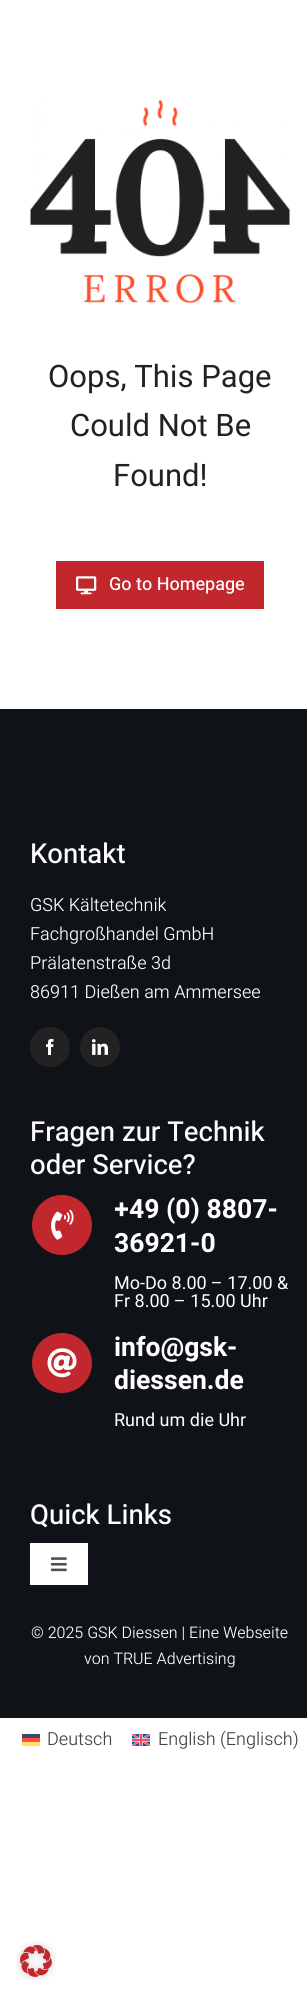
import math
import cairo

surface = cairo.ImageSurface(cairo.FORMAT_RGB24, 307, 1997)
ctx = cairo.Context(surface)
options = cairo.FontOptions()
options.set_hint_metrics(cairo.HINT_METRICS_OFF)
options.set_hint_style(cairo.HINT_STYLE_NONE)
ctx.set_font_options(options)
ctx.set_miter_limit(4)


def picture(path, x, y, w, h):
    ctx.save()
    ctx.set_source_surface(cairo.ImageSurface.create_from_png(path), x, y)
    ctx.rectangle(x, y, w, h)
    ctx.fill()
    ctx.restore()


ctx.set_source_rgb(1, 1, 1)
ctx.paint()
picture("img1.png", 30, 100, 260, 203)
ctx.select_font_face("Heebo")
ctx.set_font_size(31)
ctx.set_source_rgb(0.133, 0.133, 0.133)
ctx.move_to(48, 387)
ctx.show_text("Oops, This Page")
ctx.move_to(70, 436)
ctx.show_text("Could Not Be")
ctx.move_to(113, 486)
ctx.show_text("Found!")
ctx.set_source_rgb(0.757, 0.153, 0.176)
ctx.rectangle(56, 561, 208, 48)
ctx.fill()
picture("img2.png", 76, 576, 21, 19)
ctx.select_font_face("Heebo Medium")
ctx.set_font_size(18)
ctx.set_source_rgb(1, 1, 1)
ctx.move_to(109, 590)
ctx.show_text("Go to Homepage")
ctx.set_source_rgb(0.059, 0.075, 0.09)
ctx.rectangle(0, 709, 307, 1009)
ctx.fill()
ctx.set_font_size(27.5)
ctx.set_source_rgb(1, 1, 1)
ctx.move_to(30, 863)
ctx.show_text("Kontakt")
ctx.select_font_face("Heebo Light")
ctx.set_font_size(18)
ctx.move_to(30, 911)
ctx.show_text("GSK Kältetechnik")
ctx.move_to(30, 940)
ctx.show_text("Fachgroßhandel GmbH")
ctx.move_to(30, 969)
ctx.show_text("Prälatenstraße 3d")
ctx.move_to(30, 998)
ctx.show_text("86911 Dießen am Ammersee")
ctx.set_source_rgb(0.133, 0.133, 0.133)
ctx.new_path()
ctx.arc(50, 1047, 20, 0, 2 * math.pi)
ctx.fill()
picture("img3.png", 46, 1039, 8, 16)
ctx.arc(100, 1047, 20, 0, 2 * math.pi)
ctx.fill()
picture("img4.png", 92, 1039, 16, 16)
ctx.select_font_face("Heebo Medium")
ctx.set_font_size(27.5)
ctx.set_source_rgb(1, 1, 1)
ctx.move_to(30, 1141)
ctx.show_text("Fragen zur Technik")
ctx.move_to(30, 1174)
ctx.show_text("oder Service?")
ctx.set_source_rgb(0.757, 0.153, 0.176)
ctx.new_path()
ctx.arc(62, 1225, 30.5, 0, 2 * math.pi)
ctx.fill_preserve()
ctx.set_source_rgb(0.059, 0.075, 0.09)
ctx.set_line_width(1)
ctx.stroke()
picture("img5.png", 51, 1209, 23, 31)
ctx.select_font_face("Heebo", cairo.FONT_SLANT_NORMAL, cairo.FONT_WEIGHT_BOLD)
ctx.set_font_size(26.5)
ctx.set_source_rgb(1, 1, 1)
ctx.move_to(114, 1218)
ctx.show_text("+49 (0) 8807-")
ctx.move_to(114, 1252)
ctx.show_text("36921-0")
ctx.select_font_face("Heebo")
ctx.set_font_size(18)
ctx.move_to(114, 1289)
ctx.show_text("Mo-Do 8.00 – 17.00 &")
ctx.move_to(114, 1307)
ctx.show_text("Fr 8.00 – 15.00 Uhr")
ctx.set_source_rgb(0.757, 0.153, 0.176)
ctx.new_path()
ctx.arc(62, 1363, 30.5, 0, 2 * math.pi)
ctx.fill_preserve()
ctx.set_source_rgb(0.059, 0.075, 0.09)
ctx.stroke()
picture("img6.png", 47, 1348, 30, 30)
ctx.select_font_face("Heebo", cairo.FONT_SLANT_NORMAL, cairo.FONT_WEIGHT_BOLD)
ctx.set_font_size(26.5)
ctx.set_source_rgb(1, 1, 1)
ctx.move_to(114, 1356)
ctx.show_text("info@gsk-")
ctx.move_to(114, 1389)
ctx.show_text("diessen.de")
ctx.select_font_face("Heebo")
ctx.set_font_size(18)
ctx.move_to(114, 1426)
ctx.show_text("Rund um die Uhr")
ctx.select_font_face("Heebo Medium")
ctx.set_font_size(27.5)
ctx.move_to(30, 1524)
ctx.show_text("Quick Links")
ctx.rectangle(30, 1543, 58, 42)
ctx.fill()
picture("img7.png", 51, 1557, 16, 15)
ctx.select_font_face("Heebo Light")
ctx.set_font_size(16)
ctx.move_to(31, 1638)
ctx.show_text("© 2025 GSK Diessen | Eine Webseite")
ctx.move_to(84, 1664)
ctx.show_text("von TRUE Advertising")
ctx.set_source_rgb(0.275, 0.275, 0.333)
ctx.rectangle(22, 1734, 18, 4)
ctx.fill()
ctx.set_font_size(18)
ctx.set_source_rgb(0.267, 0.267, 0.267)
ctx.move_to(47, 1745)
ctx.show_text("Deutsch")
ctx.set_source_rgb(1, 0.294, 0.333)
ctx.rectangle(22, 1738, 18, 4)
ctx.fill()
ctx.set_source_rgb(1, 0.882, 0.353)
ctx.rectangle(22, 1742, 18, 4)
ctx.fill()
picture("img8.png", 132, 1734, 18, 12)
ctx.set_source_rgb(0.267, 0.267, 0.267)
ctx.move_to(158, 1745)
ctx.show_text("English (Englisch)")
picture("img9.png", 16, 1941, 40, 40)
surface.write_to_png("page.png")
